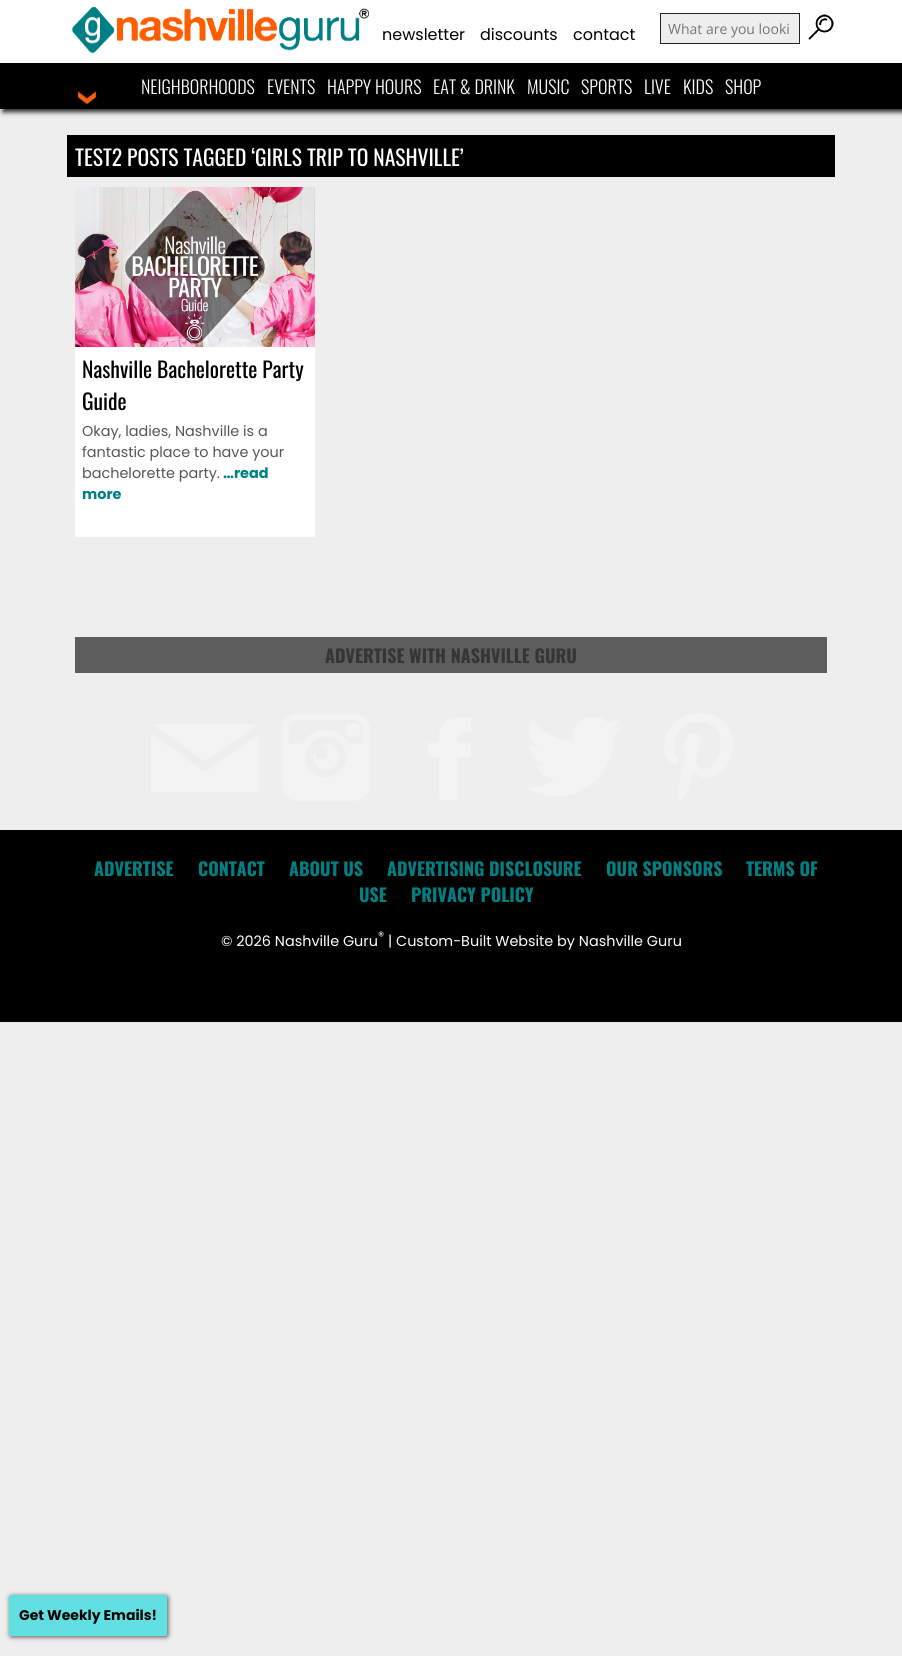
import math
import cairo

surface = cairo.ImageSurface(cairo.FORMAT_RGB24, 902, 1656)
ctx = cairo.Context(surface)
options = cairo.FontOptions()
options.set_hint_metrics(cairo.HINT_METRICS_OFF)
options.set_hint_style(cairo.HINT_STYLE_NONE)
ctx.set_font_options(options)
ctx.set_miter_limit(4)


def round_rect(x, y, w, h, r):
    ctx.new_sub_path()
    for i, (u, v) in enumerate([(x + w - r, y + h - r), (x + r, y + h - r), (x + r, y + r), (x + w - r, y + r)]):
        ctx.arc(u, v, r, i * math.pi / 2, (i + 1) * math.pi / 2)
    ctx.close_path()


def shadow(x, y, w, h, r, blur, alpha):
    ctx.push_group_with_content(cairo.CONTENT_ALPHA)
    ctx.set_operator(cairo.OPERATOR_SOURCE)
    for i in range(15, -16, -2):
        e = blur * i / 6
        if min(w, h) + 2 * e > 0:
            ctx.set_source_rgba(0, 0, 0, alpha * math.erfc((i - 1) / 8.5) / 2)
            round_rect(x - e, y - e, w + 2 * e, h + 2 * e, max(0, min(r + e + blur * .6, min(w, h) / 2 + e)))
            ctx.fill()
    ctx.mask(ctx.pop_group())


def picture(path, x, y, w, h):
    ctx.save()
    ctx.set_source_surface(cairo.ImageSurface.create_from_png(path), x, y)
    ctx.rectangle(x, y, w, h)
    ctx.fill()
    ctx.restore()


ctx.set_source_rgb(0.933, 0.933, 0.933)
ctx.paint()
ctx.set_source_rgb(0.133, 0.133, 0.133)
shadow(3, 3, 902, 109, 0, 2.5, 1)
ctx.set_source_rgb(1, 1, 1)
ctx.rectangle(0, 0, 902, 63)
ctx.fill()
picture("img1.png", 72, 6, 297, 48)
ctx.set_source_rgb(0, 0, 0)
ctx.rectangle(0, 63, 902, 46)
ctx.fill()
picture("img2.png", 77, 91, 20, 14)
ctx.select_font_face("Poppins")
ctx.set_font_size(16)
ctx.move_to(382, 40)
ctx.show_text("newsletter")
ctx.move_to(480, 40)
ctx.show_text("discounts")
ctx.move_to(573, 40)
ctx.show_text("contact")
ctx.set_source_rgb(0.933, 0.933, 0.933)
ctx.rectangle(660.5, 13.5, 139, 30)
ctx.fill_preserve()
ctx.set_source_rgb(0.133, 0.133, 0.133)
ctx.set_line_width(1)
ctx.stroke()
ctx.select_font_face("Open Sans")
ctx.set_font_size(14)
ctx.set_source_rgb(0.459, 0.459, 0.459)
ctx.move_to(668, 34)
ctx.show_text("What are you looki")
picture("img3.png", 808, 14, 26, 26)
ctx.select_font_face("Oswald Light")
ctx.set_font_size(18)
ctx.set_source_rgb(1, 1, 1)
ctx.move_to(141, 94)
ctx.show_text("NEIGHBORHOODS")
ctx.move_to(267, 94)
ctx.show_text("EVENTS")
ctx.move_to(327, 94)
ctx.show_text("HAPPY HOURS")
ctx.move_to(433, 94)
ctx.show_text("EAT & DRINK")
ctx.move_to(527, 94)
ctx.show_text("MUSIC")
ctx.move_to(581, 94)
ctx.show_text("SPORTS")
ctx.move_to(644, 94)
ctx.show_text("LIVE")
ctx.move_to(683, 94)
ctx.show_text("KIDS")
ctx.move_to(725, 94)
ctx.show_text("SHOP")
ctx.set_source_rgb(0, 0, 0)
ctx.rectangle(67, 135, 768, 42)
ctx.fill()
ctx.select_font_face("Oswald")
ctx.set_font_size(21.6)
ctx.set_source_rgb(1, 1, 1)
ctx.move_to(75, 166)
ctx.show_text("TEST2 POSTS TAGGED ‘GIRLS TRIP TO NASHVILLE’")
ctx.rectangle(75, 347, 240, 190)
ctx.fill()
picture("img4.png", 75, 187, 240, 160)
ctx.set_source_rgb(0, 0, 0)
ctx.move_to(82, 378)
ctx.show_text("Nashville Bachelorette Party")
ctx.move_to(82, 410)
ctx.show_text("Guide")
ctx.select_font_face("Poppins")
ctx.set_font_size(14.4)
ctx.set_source_rgb(0.333, 0.333, 0.333)
ctx.move_to(82, 436)
ctx.show_text("Okay, ladies, Nashville is a")
ctx.move_to(82, 457)
ctx.show_text("fantastic place to have your")
ctx.move_to(82, 478)
ctx.show_text("bachelorette party.")
ctx.select_font_face("Poppins", cairo.FONT_SLANT_NORMAL, cairo.FONT_WEIGHT_BOLD)
ctx.set_source_rgb(0, 0.502, 0.514)
ctx.move_to(223, 478)
ctx.show_text("…read")
ctx.move_to(82, 499)
ctx.show_text("more")
ctx.set_source_rgb(0.365, 0.365, 0.365)
ctx.rectangle(75, 637, 752, 36)
ctx.fill()
ctx.select_font_face("Oswald", cairo.FONT_SLANT_NORMAL, cairo.FONT_WEIGHT_BOLD)
ctx.set_font_size(18)
ctx.set_source_rgb(0.208, 0.208, 0.208)
ctx.move_to(325, 663)
ctx.show_text("ADVERTISE WITH NASHVILLE GURU")
picture("img5.png", 151, 724, 108, 68)
picture("img6.png", 282, 713, 88, 88)
picture("img7.png", 428, 717, 43, 83)
picture("img8.png", 528, 717, 94, 79)
picture("img9.png", 664, 713, 69, 89)
ctx.set_source_rgb(0, 0, 0)
ctx.rectangle(0, 830, 902, 192)
ctx.fill()
ctx.set_source_rgb(0, 0.502, 0.514)
ctx.move_to(94, 876)
ctx.show_text("ADVERTISE")
ctx.move_to(198, 876)
ctx.show_text("CONTACT")
ctx.move_to(289, 876)
ctx.show_text("ABOUT US")
ctx.move_to(387, 876)
ctx.show_text("ADVERTISING DISCLOSURE")
ctx.move_to(606, 876)
ctx.show_text("OUR SPONSORS")
ctx.move_to(746, 876)
ctx.show_text("TERMS OF")
ctx.move_to(359, 902)
ctx.show_text("USE")
ctx.move_to(411, 902)
ctx.show_text("PRIVACY POLICY")
ctx.select_font_face("Poppins")
ctx.set_font_size(14.4)
ctx.set_source_rgb(1, 1, 1)
ctx.move_to(221, 946)
ctx.show_text("© 2026 Nashville Guru")
ctx.set_font_size(12)
ctx.move_to(378, 940)
ctx.show_text("®")
ctx.set_font_size(14.4)
ctx.move_to(388, 946)
ctx.show_text("| Custom-Built Website by Nashville Guru")
ctx.set_source_rgb(0.333, 0.333, 0.333)
shadow(10, 1596, 158, 41, 2, 2.5, 1)
ctx.set_source_rgb(0.384, 0.875, 0.882)
round_rect(9, 1595, 158, 41, 2)
ctx.fill()
ctx.select_font_face("Poppins", cairo.FONT_SLANT_NORMAL, cairo.FONT_WEIGHT_BOLD)
ctx.set_font_size(14)
ctx.set_source_rgb(0, 0, 0)
ctx.move_to(19, 1620)
ctx.show_text("Get Weekly Emails!")
surface.write_to_png("page.png")
